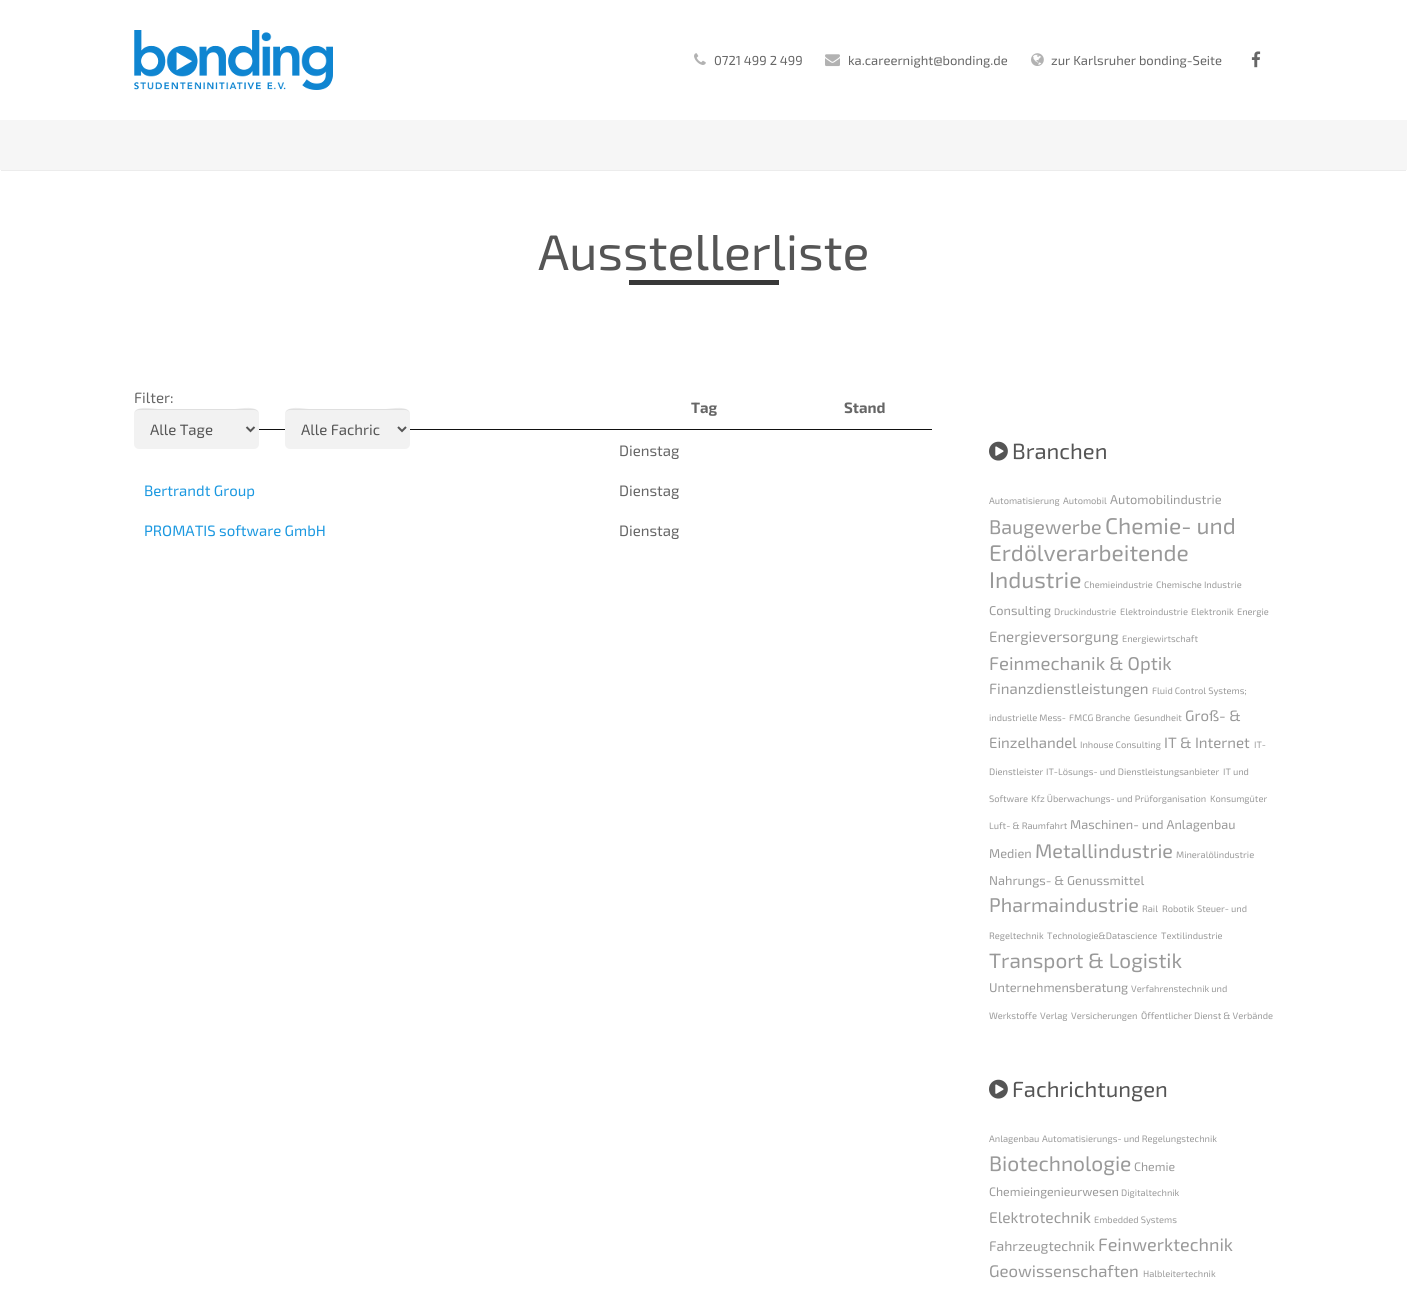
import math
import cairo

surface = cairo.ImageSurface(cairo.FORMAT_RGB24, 1407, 1295)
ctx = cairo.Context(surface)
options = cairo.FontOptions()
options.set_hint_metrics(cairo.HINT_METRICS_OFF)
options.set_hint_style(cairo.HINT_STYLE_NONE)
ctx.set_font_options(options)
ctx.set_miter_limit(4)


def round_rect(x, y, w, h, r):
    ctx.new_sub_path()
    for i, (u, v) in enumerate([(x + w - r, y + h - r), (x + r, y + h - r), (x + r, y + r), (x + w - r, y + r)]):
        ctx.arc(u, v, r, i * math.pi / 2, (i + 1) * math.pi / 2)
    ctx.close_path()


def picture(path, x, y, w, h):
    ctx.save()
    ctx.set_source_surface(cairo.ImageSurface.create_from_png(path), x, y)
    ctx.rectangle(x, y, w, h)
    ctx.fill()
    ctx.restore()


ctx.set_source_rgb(1, 1, 1)
ctx.paint()
picture("img1.png", 134, 30, 199, 60)
picture("img2.png", 694, 53, 12, 12)
ctx.select_font_face("Exo 2")
ctx.set_font_size(13)
ctx.set_source_rgb(0.4, 0.4, 0.4)
ctx.move_to(714, 65)
ctx.show_text("0721 499 2 499")
picture("img3.png", 825, 54, 15, 13)
ctx.move_to(848, 65)
ctx.show_text("ka.careernight@bonding.de")
picture("img4.png", 1031, 53, 13, 13)
ctx.move_to(1051, 65)
ctx.show_text("zur Karlsruher bonding-Seite")
picture("img5.png", 1251, 51, 10, 17)
ctx.set_source_rgb(0.922, 0.922, 0.922)
ctx.rectangle(1, 170, 1405, 1)
ctx.fill()
ctx.set_source_rgb(0.961, 0.961, 0.961)
ctx.rectangle(0, 120, 1407, 50)
ctx.fill()
ctx.set_font_size(50)
ctx.set_source_rgb(0.333, 0.333, 0.333)
ctx.move_to(538, 270)
ctx.show_text("Ausstellerliste")
ctx.set_source_rgb(0.22, 0.22, 0.22)
ctx.rectangle(629, 280, 150, 3)
ctx.fill()
ctx.rectangle(776, 280, 3, 5)
ctx.fill()
ctx.rectangle(629, 283, 150, 2)
ctx.fill()
ctx.set_font_size(15)
ctx.set_source_rgb(0.4, 0.4, 0.4)
ctx.move_to(134, 403)
ctx.show_text("Filter:")
ctx.set_source_rgb(0.949, 0.949, 0.949)
round_rect(134, 409, 125, 40, 5)
ctx.fill()
ctx.set_source_rgba(0, 0, 0, 0.08)
ctx.new_path()
ctx.move_to(139, 410)
ctx.line_to(254, 410)
ctx.curve_to(257, 410, 259, 412, 259, 415)
ctx.curve_to(259, 404, 239, 409, 235, 409)
ctx.line_to(158, 409)
ctx.curve_to(154, 409, 134, 404, 134, 415)
ctx.curve_to(134, 412, 136, 410, 139, 410)
ctx.close_path()
ctx.fill()
ctx.new_path()
ctx.move_to(246.5, 427)
ctx.line_to(250.5, 431)
ctx.line_to(254.5, 427)
ctx.set_source_rgb(0.333, 0.333, 0.333)
ctx.stroke()
ctx.move_to(150, 435)
ctx.show_text("Alle Tage")
ctx.set_source_rgb(0.067, 0.067, 0.067)
ctx.rectangle(259, 429, 673, 1)
ctx.fill()
ctx.set_source_rgb(0.949, 0.949, 0.949)
round_rect(285, 409, 125, 40, 5)
ctx.fill()
ctx.set_source_rgba(0, 0, 0, 0.08)
ctx.new_path()
ctx.move_to(290, 410)
ctx.line_to(405, 410)
ctx.curve_to(408, 410, 410, 412, 410, 415)
ctx.curve_to(410, 404, 390, 409, 386, 409)
ctx.line_to(309, 409)
ctx.curve_to(305, 409, 285, 404, 285, 415)
ctx.curve_to(285, 412, 287, 410, 290, 410)
ctx.close_path()
ctx.fill()
ctx.new_path()
ctx.move_to(398, 427)
ctx.line_to(402, 431)
ctx.line_to(406, 427)
ctx.set_source_rgb(0.333, 0.333, 0.333)
ctx.stroke()
ctx.move_to(301, 435)
ctx.show_text("Alle Fachric")
ctx.select_font_face("Exo 2", cairo.FONT_SLANT_NORMAL, cairo.FONT_WEIGHT_BOLD)
ctx.set_source_rgb(0.4, 0.4, 0.4)
ctx.move_to(691, 413)
ctx.show_text("Tag")
ctx.move_to(844, 413)
ctx.show_text("Stand")
ctx.select_font_face("Exo 2")
ctx.move_to(619, 456)
ctx.show_text("Dienstag")
ctx.set_source_rgb(0.106, 0.596, 0.878)
ctx.move_to(144, 496)
ctx.show_text("Bertrandt Group")
ctx.set_source_rgb(0.4, 0.4, 0.4)
ctx.move_to(619, 496)
ctx.show_text("Dienstag")
ctx.set_source_rgb(0.106, 0.596, 0.878)
ctx.move_to(144, 536)
ctx.show_text("PROMATIS software GmbH")
ctx.set_source_rgb(0.4, 0.4, 0.4)
ctx.move_to(619, 536)
ctx.show_text("Dienstag")
picture("img6.png", 989, 441, 19, 20)
ctx.set_font_size(22)
ctx.set_source_rgb(0.333, 0.333, 0.333)
ctx.move_to(1012, 459)
ctx.show_text("Branchen")
ctx.set_font_size(9.3)
ctx.set_source_rgb(0.6, 0.6, 0.6)
ctx.move_to(989, 504)
ctx.show_text("Automatisierung")
ctx.move_to(1063, 504)
ctx.show_text("Automobil")
ctx.set_font_size(12.75)
ctx.move_to(1110, 504)
ctx.show_text("Automobilindustrie")
ctx.set_font_size(19.75)
ctx.move_to(989, 534)
ctx.show_text("Baugewerbe")
ctx.set_font_size(22.75)
ctx.move_to(1105, 534)
ctx.show_text("Chemie- und")
ctx.move_to(989, 561)
ctx.show_text("Erdölverarbeitende")
ctx.move_to(989, 588)
ctx.show_text("Industrie")
ctx.set_font_size(9.3)
ctx.move_to(1084, 588)
ctx.show_text("Chemieindustrie")
ctx.move_to(1156, 588)
ctx.show_text("Chemische Industrie")
ctx.set_font_size(12.75)
ctx.move_to(989, 615)
ctx.show_text("Consulting")
ctx.set_font_size(9.3)
ctx.move_to(1054, 615)
ctx.show_text("Druckindustrie")
ctx.move_to(1120, 615)
ctx.show_text("Elektroindustrie")
ctx.move_to(1191, 615)
ctx.show_text("Elektronik")
ctx.move_to(1237, 615)
ctx.show_text("Energie")
ctx.set_font_size(15)
ctx.move_to(989, 642)
ctx.show_text("Energieversorgung")
ctx.set_font_size(9.3)
ctx.move_to(1122, 642)
ctx.show_text("Energiewirtschaft")
ctx.set_font_size(18.5)
ctx.move_to(989, 670)
ctx.show_text("Feinmechanik & Optik")
ctx.set_font_size(15)
ctx.move_to(989, 694)
ctx.show_text("Finanzdienstleistungen")
ctx.set_font_size(9.3)
ctx.move_to(1152, 694)
ctx.show_text("Fluid Control Systems;")
ctx.move_to(989, 721)
ctx.show_text("industrielle Mess-")
ctx.move_to(1069, 721)
ctx.show_text("FMCG Branche")
ctx.move_to(1134, 721)
ctx.show_text("Gesundheit")
ctx.set_font_size(15)
ctx.move_to(1185, 721)
ctx.show_text("Groß- &")
ctx.move_to(989, 748)
ctx.show_text("Einzelhandel")
ctx.set_font_size(9.3)
ctx.move_to(1080, 748)
ctx.show_text("Inhouse Consulting")
ctx.set_font_size(15)
ctx.move_to(1164, 748)
ctx.show_text("IT & Internet")
ctx.set_font_size(9.3)
ctx.move_to(1254, 748)
ctx.show_text("IT-")
ctx.move_to(989, 775)
ctx.show_text("Dienstleister")
ctx.move_to(1046, 775)
ctx.show_text("IT-Lösungs- und Dienstleistungsanbieter")
ctx.move_to(1223, 775)
ctx.show_text("IT und")
ctx.move_to(989, 802)
ctx.show_text("Software")
ctx.move_to(1031, 802)
ctx.show_text("Kfz Überwachungs- und Prüforganisation")
ctx.move_to(1210, 802)
ctx.show_text("Konsumgüter")
ctx.move_to(989, 829)
ctx.show_text("Luft- & Raumfahrt")
ctx.set_font_size(12.75)
ctx.move_to(1070, 829)
ctx.show_text("Maschinen- und Anlagenbau")
ctx.move_to(989, 858)
ctx.show_text("Medien")
ctx.set_font_size(19.75)
ctx.move_to(1035, 858)
ctx.show_text("Metallindustrie")
ctx.set_font_size(9.3)
ctx.move_to(1176, 858)
ctx.show_text("Mineralölindustrie")
ctx.set_font_size(12.75)
ctx.move_to(989, 885)
ctx.show_text("Nahrungs- & Genussmittel")
ctx.set_font_size(19.75)
ctx.move_to(989, 912)
ctx.show_text("Pharmaindustrie")
ctx.set_font_size(9.3)
ctx.move_to(1142, 912)
ctx.show_text("Rail")
ctx.move_to(1162, 912)
ctx.show_text("Robotik")
ctx.move_to(1197, 912)
ctx.show_text("Steuer- und")
ctx.move_to(989, 939)
ctx.show_text("Regeltechnik")
ctx.move_to(1047, 939)
ctx.show_text("Technologie&Datascience")
ctx.move_to(1161, 939)
ctx.show_text("Textilindustrie")
ctx.set_font_size(20.75)
ctx.move_to(989, 968)
ctx.show_text("Transport & Logistik")
ctx.set_font_size(12.75)
ctx.move_to(989, 992)
ctx.show_text("Unternehmensberatung")
ctx.set_font_size(9.3)
ctx.move_to(1131, 992)
ctx.show_text("Verfahrenstechnik und")
ctx.move_to(989, 1019)
ctx.show_text("Werkstoffe")
ctx.move_to(1040, 1019)
ctx.show_text("Verlag")
ctx.move_to(1071, 1019)
ctx.show_text("Versicherungen")
ctx.move_to(1141, 1019)
ctx.show_text("Öffentlicher Dienst & Verbände")
picture("img6.png", 989, 1079, 19, 20)
ctx.set_font_size(22)
ctx.set_source_rgb(0.333, 0.333, 0.333)
ctx.move_to(1012, 1097)
ctx.show_text("Fachrichtungen")
ctx.set_font_size(9.3)
ctx.set_source_rgb(0.6, 0.6, 0.6)
ctx.move_to(989, 1142)
ctx.show_text("Anlagenbau")
ctx.move_to(1042, 1142)
ctx.show_text("Automatisierungs- und Regelungstechnik")
ctx.set_font_size(21)
ctx.move_to(989, 1171)
ctx.show_text("Biotechnologie")
ctx.set_font_size(12.25)
ctx.move_to(1134, 1171)
ctx.show_text("Chemie")
ctx.move_to(989, 1196)
ctx.show_text("Chemieingenieurwesen")
ctx.set_font_size(9.3)
ctx.move_to(1121, 1196)
ctx.show_text("Digitaltechnik")
ctx.set_font_size(15.5)
ctx.move_to(989, 1223)
ctx.show_text("Elektrotechnik")
ctx.set_font_size(9.3)
ctx.move_to(1094, 1223)
ctx.show_text("Embedded Systems")
ctx.set_font_size(14)
ctx.move_to(989, 1251)
ctx.show_text("Fahrzeugtechnik")
ctx.set_font_size(18)
ctx.move_to(1098, 1251)
ctx.show_text("Feinwerktechnik")
ctx.set_font_size(16.75)
ctx.move_to(989, 1277)
ctx.show_text("Geowissenschaften")
ctx.set_font_size(9.3)
ctx.move_to(1143, 1277)
ctx.show_text("Halbleitertechnik")
surface.write_to_png("page.png")
